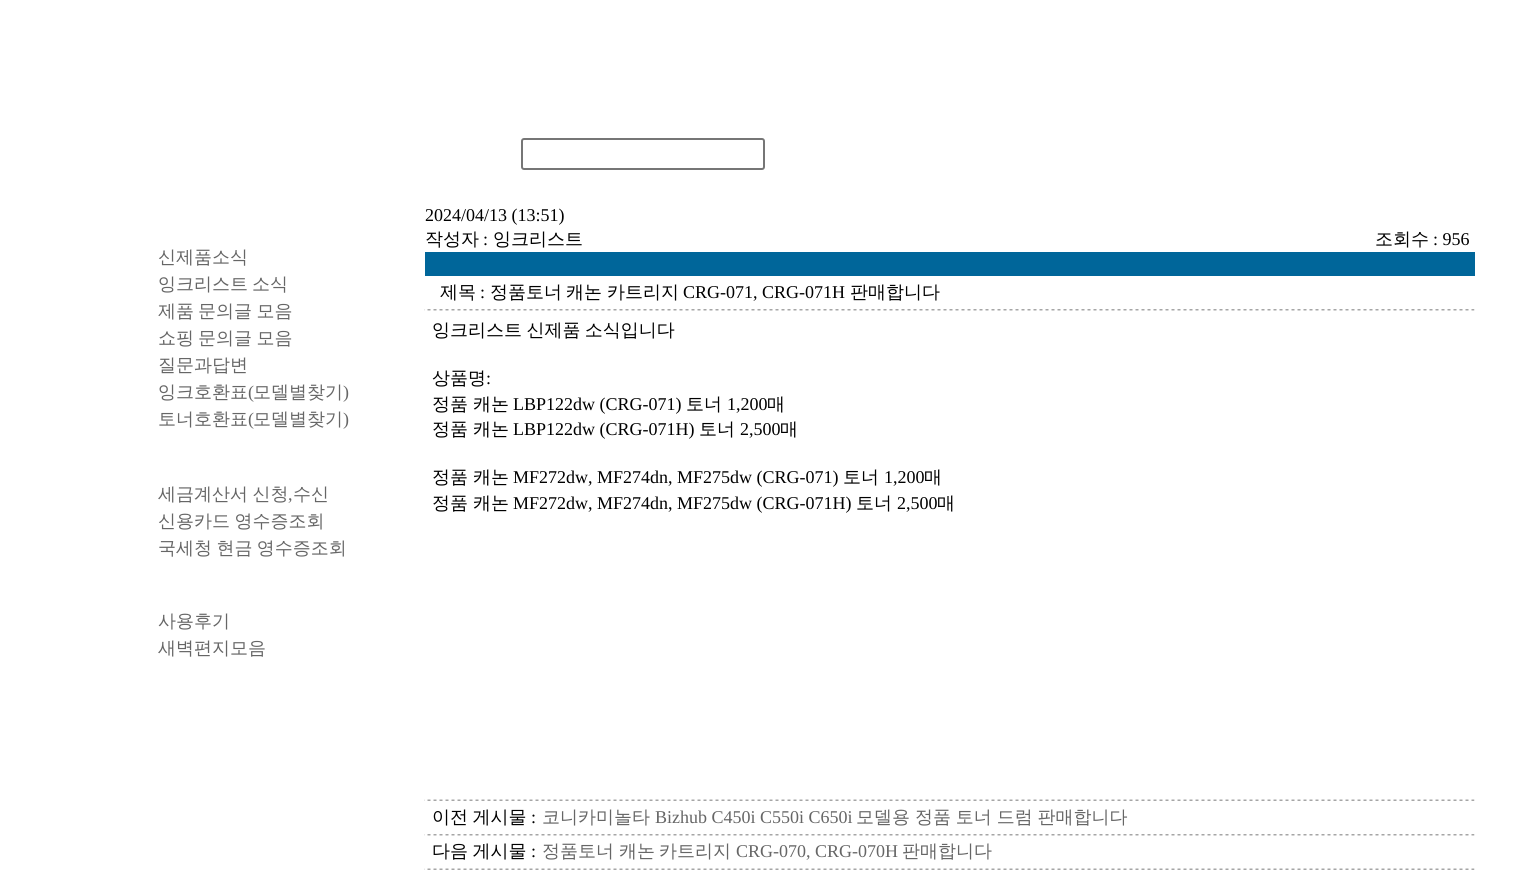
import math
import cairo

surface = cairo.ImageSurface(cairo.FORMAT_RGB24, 1513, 876)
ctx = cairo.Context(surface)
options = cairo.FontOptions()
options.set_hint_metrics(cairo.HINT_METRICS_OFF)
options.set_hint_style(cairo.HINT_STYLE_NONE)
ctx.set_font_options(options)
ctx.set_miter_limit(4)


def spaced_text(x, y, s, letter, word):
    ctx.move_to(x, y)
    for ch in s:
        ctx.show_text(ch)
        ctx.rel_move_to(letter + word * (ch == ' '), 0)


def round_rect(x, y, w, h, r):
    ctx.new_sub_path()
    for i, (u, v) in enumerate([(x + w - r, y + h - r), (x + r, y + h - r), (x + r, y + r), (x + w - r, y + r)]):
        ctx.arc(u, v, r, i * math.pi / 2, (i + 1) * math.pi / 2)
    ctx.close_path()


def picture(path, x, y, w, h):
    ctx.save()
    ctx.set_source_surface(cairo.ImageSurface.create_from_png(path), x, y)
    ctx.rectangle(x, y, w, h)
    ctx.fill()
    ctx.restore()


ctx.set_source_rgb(1, 1, 1)
ctx.paint()
round_rect(522, 139, 242, 30, 2)
ctx.set_source_rgb(0.463, 0.463, 0.463)
ctx.stroke()
ctx.select_font_face("WenQuanYi Zen Hei Medium")
ctx.set_font_size(18)
ctx.set_source_rgb(0.4, 0.4, 0.4)
ctx.move_to(158, 263)
ctx.show_text("신제품소식")
ctx.move_to(158, 290)
ctx.show_text("잉크리스트")
ctx.move_to(252, 290)
ctx.show_text("소식")
ctx.move_to(158, 317)
ctx.show_text("제품")
spaced_text(198, 317, "문의글 모음", 0, -1)
ctx.move_to(158, 344)
ctx.show_text("쇼핑")
spaced_text(198, 344, "문의글 모음", 0, -1)
ctx.move_to(158, 371)
ctx.show_text("질문과답변")
ctx.move_to(158, 398)
ctx.show_text("잉크호환표")
ctx.select_font_face("Liberation Serif")
ctx.move_to(248, 398)
ctx.show_text("(")
ctx.select_font_face("WenQuanYi Zen Hei Medium")
ctx.move_to(253, 398)
ctx.show_text("모델별찾기")
ctx.select_font_face("Liberation Serif")
ctx.move_to(343, 398)
ctx.show_text(")")
ctx.select_font_face("WenQuanYi Zen Hei Medium")
ctx.move_to(158, 425)
ctx.show_text("토너호환표")
ctx.select_font_face("Liberation Serif")
ctx.move_to(248, 425)
ctx.show_text("(")
ctx.select_font_face("WenQuanYi Zen Hei Medium")
ctx.move_to(253, 425)
ctx.show_text("모델별찾기")
ctx.select_font_face("Liberation Serif")
ctx.move_to(343, 425)
ctx.show_text(")")
ctx.select_font_face("WenQuanYi Zen Hei Medium")
spaced_text(158, 500, "세금계산서 신청", 0, -1)
ctx.select_font_face("Liberation Serif")
ctx.move_to(288, 500)
ctx.show_text(",")
ctx.select_font_face("WenQuanYi Zen Hei Medium")
ctx.move_to(293, 500)
ctx.show_text("수신")
spaced_text(158, 527, "신용카드 영수증조회", 0, -1)
spaced_text(158, 554, "국세청 현금 영수증조회", 0, -1)
ctx.move_to(158, 627)
ctx.show_text("사용후기")
ctx.move_to(158, 654)
ctx.show_text("새벽편지모음")
ctx.select_font_face("Liberation Serif")
ctx.set_source_rgb(0, 0, 0)
ctx.move_to(425, 221)
ctx.show_text("2024/04/13 (13:51)")
ctx.select_font_face("WenQuanYi Zen Hei Medium")
ctx.move_to(425, 245)
ctx.show_text("작성자")
ctx.select_font_face("Liberation Serif")
ctx.move_to(483, 245)
ctx.show_text(":")
ctx.select_font_face("WenQuanYi Zen Hei Medium")
ctx.move_to(493, 245)
ctx.show_text("잉크리스트")
ctx.move_to(1375, 245)
ctx.show_text("조회수")
ctx.select_font_face("Liberation Serif")
ctx.move_to(1433, 245)
ctx.show_text(": 956")
ctx.set_source_rgb(0, 0.4, 0.604)
ctx.rectangle(425, 252, 1050, 24)
ctx.fill()
ctx.select_font_face("WenQuanYi Zen Hei Medium")
ctx.set_source_rgb(0, 0, 0)
ctx.move_to(440, 298)
ctx.show_text("제목")
ctx.select_font_face("Liberation Serif")
ctx.move_to(480, 298)
ctx.show_text(":")
ctx.select_font_face("WenQuanYi Zen Hei Medium")
ctx.move_to(490, 298)
ctx.show_text("정품토너")
ctx.move_to(566, 298)
ctx.show_text("캐논")
ctx.move_to(607, 298)
ctx.show_text("카트리지")
ctx.select_font_face("Liberation Serif")
ctx.move_to(683, 298)
ctx.show_text("CRG-071, CRG-071H")
ctx.select_font_face("WenQuanYi Zen Hei Medium")
ctx.move_to(850, 298)
ctx.show_text("판매합니다")
picture("img1.png", 424, 309, 1051, 2)
spaced_text(432, 336, "잉크리스트 신제품 소식입니다", 0, -1)
ctx.move_to(432, 384)
ctx.show_text("상품명")
ctx.select_font_face("Liberation Serif")
ctx.move_to(486, 384)
ctx.show_text(":")
ctx.select_font_face("WenQuanYi Zen Hei Medium")
ctx.move_to(432, 410)
ctx.show_text("정품")
ctx.move_to(473, 410)
ctx.show_text("캐논")
ctx.select_font_face("Liberation Serif")
ctx.move_to(513, 410)
ctx.show_text("LBP122dw (CRG-071)")
ctx.select_font_face("WenQuanYi Zen Hei Medium")
ctx.move_to(686, 410)
ctx.show_text("토너")
ctx.select_font_face("Liberation Serif")
ctx.move_to(727, 410)
ctx.show_text("1,200")
ctx.select_font_face("WenQuanYi Zen Hei Medium")
ctx.move_to(767, 410)
ctx.show_text("매")
ctx.move_to(432, 435)
ctx.show_text("정품")
ctx.move_to(473, 435)
ctx.show_text("캐논")
ctx.select_font_face("Liberation Serif")
ctx.move_to(513, 435)
ctx.show_text("LBP122dw (CRG-071H)")
ctx.select_font_face("WenQuanYi Zen Hei Medium")
ctx.move_to(699, 435)
ctx.show_text("토너")
ctx.select_font_face("Liberation Serif")
ctx.move_to(740, 435)
ctx.show_text("2,500")
ctx.select_font_face("WenQuanYi Zen Hei Medium")
ctx.move_to(780, 435)
ctx.show_text("매")
ctx.move_to(432, 483)
ctx.show_text("정품")
ctx.move_to(473, 483)
ctx.show_text("캐논")
ctx.select_font_face("Liberation Serif")
ctx.move_to(513, 483)
ctx.show_text("MF272dw, MF274dn, MF275dw (CRG-071)")
ctx.select_font_face("WenQuanYi Zen Hei Medium")
ctx.move_to(843, 483)
ctx.show_text("토너")
ctx.select_font_face("Liberation Serif")
ctx.move_to(884, 483)
ctx.show_text("1,200")
ctx.select_font_face("WenQuanYi Zen Hei Medium")
ctx.move_to(924, 483)
ctx.show_text("매")
ctx.move_to(432, 509)
ctx.show_text("정품")
ctx.move_to(473, 509)
ctx.show_text("캐논")
ctx.select_font_face("Liberation Serif")
ctx.move_to(513, 509)
ctx.show_text("MF272dw, MF274dn, MF275dw (CRG-071H)")
ctx.select_font_face("WenQuanYi Zen Hei Medium")
ctx.move_to(856, 509)
ctx.show_text("토너")
ctx.select_font_face("Liberation Serif")
ctx.move_to(897, 509)
ctx.show_text("2,500")
ctx.select_font_face("WenQuanYi Zen Hei Medium")
ctx.move_to(937, 509)
ctx.show_text("매")
picture("img2.png", 424, 799, 1051, 2)
spaced_text(432, 823, "이전 게시물", 0, -1)
ctx.select_font_face("Liberation Serif")
ctx.move_to(531, 823)
ctx.show_text(":")
ctx.select_font_face("WenQuanYi Zen Hei Medium")
ctx.set_source_rgb(0.4, 0.4, 0.4)
ctx.move_to(542, 823)
ctx.show_text("코니카미놀타")
ctx.select_font_face("Liberation Serif")
ctx.move_to(655, 823)
ctx.show_text("Bizhub C450i C550i C650i")
ctx.select_font_face("WenQuanYi Zen Hei Medium")
spaced_text(856, 823, "모델용 정품 토너 드럼 판매합니다", 0, -0.5)
picture("img1.png", 424, 834, 1051, 2)
ctx.set_source_rgb(0, 0, 0)
spaced_text(432, 857, "다음 게시물", 0, -1)
ctx.select_font_face("Liberation Serif")
ctx.move_to(531, 857)
ctx.show_text(":")
ctx.select_font_face("WenQuanYi Zen Hei Medium")
ctx.set_source_rgb(0.4, 0.4, 0.4)
ctx.move_to(542, 857)
ctx.show_text("정품토너")
ctx.move_to(619, 857)
ctx.show_text("캐논")
ctx.move_to(659, 857)
ctx.show_text("카트리지")
ctx.select_font_face("Liberation Serif")
ctx.move_to(736, 857)
ctx.show_text("CRG-070, CRG-070H")
ctx.select_font_face("WenQuanYi Zen Hei Medium")
ctx.move_to(902, 857)
ctx.show_text("판매합니다")
picture("img2.png", 424, 868, 1051, 2)
surface.write_to_png("page.png")
